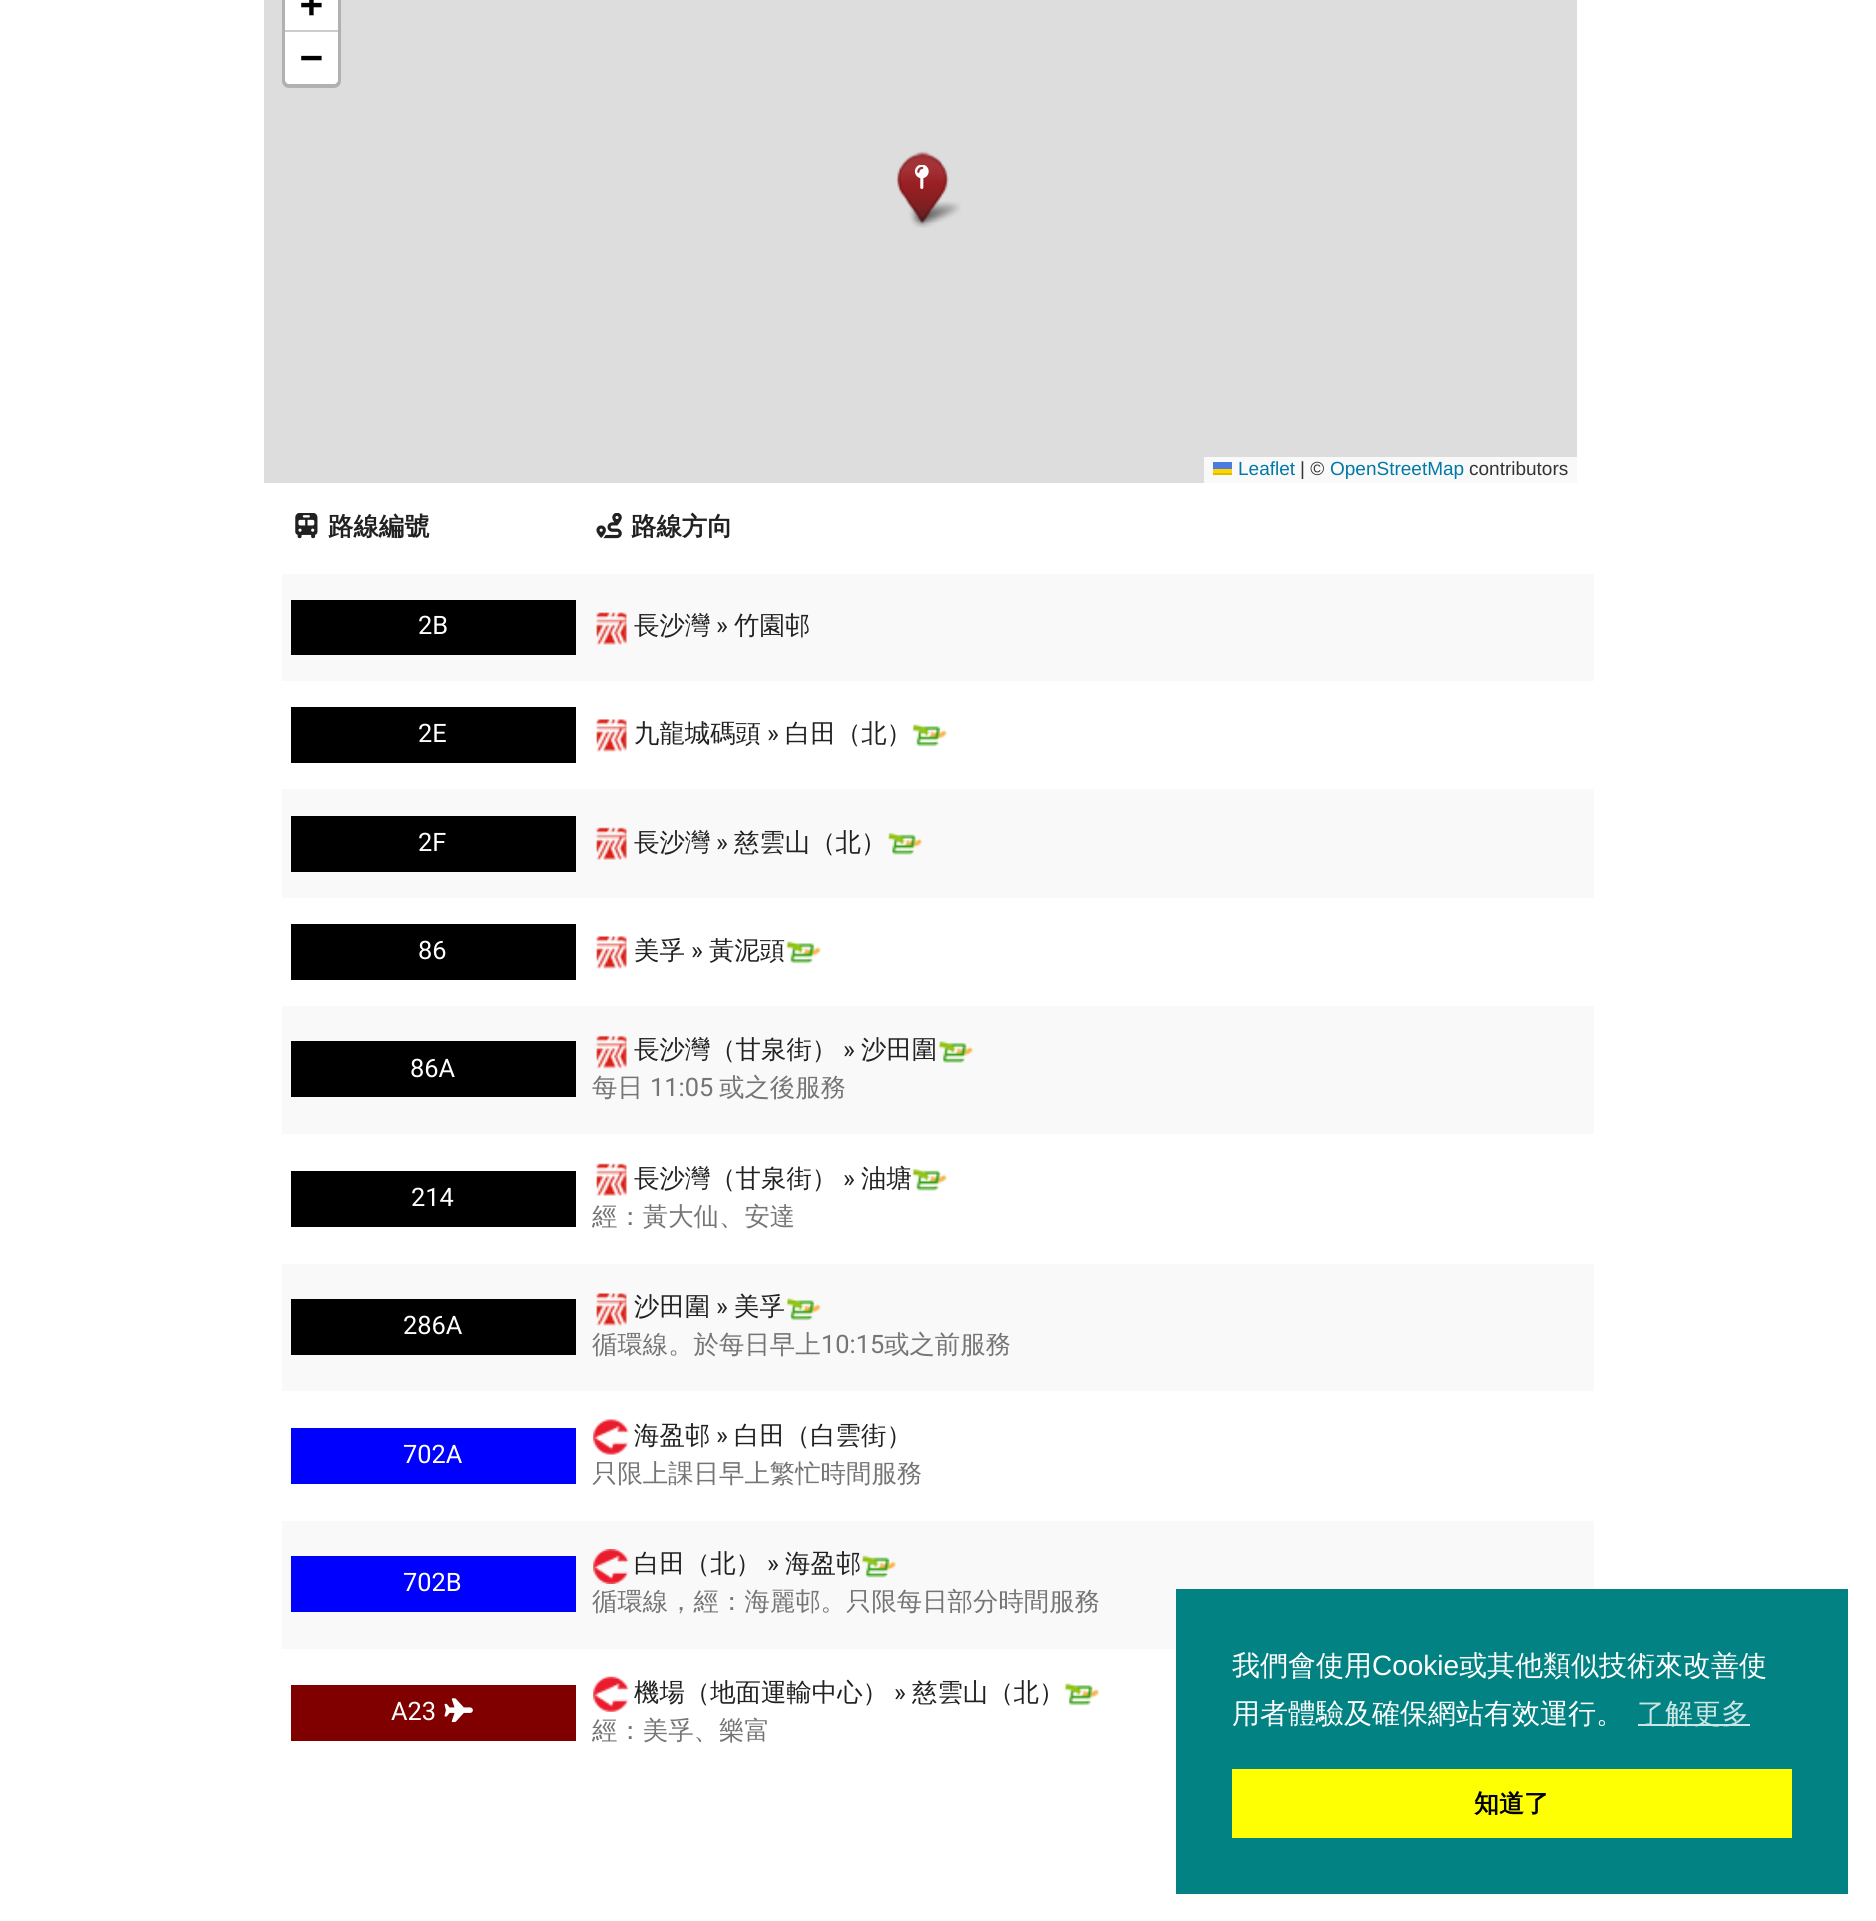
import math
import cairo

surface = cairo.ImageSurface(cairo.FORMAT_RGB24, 1876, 1921)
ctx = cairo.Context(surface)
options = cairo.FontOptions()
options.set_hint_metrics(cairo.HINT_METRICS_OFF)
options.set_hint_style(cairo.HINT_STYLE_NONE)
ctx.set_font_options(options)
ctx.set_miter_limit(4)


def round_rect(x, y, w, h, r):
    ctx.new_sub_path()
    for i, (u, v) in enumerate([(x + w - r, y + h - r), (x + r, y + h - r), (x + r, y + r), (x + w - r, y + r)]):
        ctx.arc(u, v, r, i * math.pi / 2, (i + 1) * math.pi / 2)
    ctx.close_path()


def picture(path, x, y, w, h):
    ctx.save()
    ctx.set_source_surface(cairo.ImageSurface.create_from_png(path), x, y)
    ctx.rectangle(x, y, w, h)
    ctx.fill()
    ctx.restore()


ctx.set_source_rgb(1, 1, 1)
ctx.paint()
ctx.set_source_rgb(0.867, 0.867, 0.867)
ctx.rectangle(264, 0, 1313, 483)
ctx.fill()
round_rect(284, -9, 55, 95, 5)
ctx.set_source_rgb(0.694, 0.694, 0.694)
ctx.set_line_width(4)
ctx.stroke()
ctx.set_source_rgb(1, 1, 1)
ctx.rectangle(285, 0, 53, 30)
ctx.fill()
ctx.set_source_rgb(0.8, 0.8, 0.8)
ctx.rectangle(285, 30, 53, 2)
ctx.fill()
ctx.select_font_face("DejaVu Sans Mono", cairo.FONT_SLANT_NORMAL, cairo.FONT_WEIGHT_BOLD)
ctx.set_font_size(38)
ctx.set_source_rgb(0, 0, 0)
ctx.move_to(300, 17)
ctx.show_text("+")
ctx.set_source_rgb(1, 1, 1)
ctx.new_path()
ctx.move_to(285, 32)
ctx.line_to(338, 32)
ctx.line_to(338, 80)
ctx.curve_to(338, 82, 336, 84, 334, 84)
ctx.line_to(289, 84)
ctx.curve_to(287, 84, 285, 82, 285, 80)
ctx.close_path()
ctx.fill()
ctx.set_source_rgb(0, 0, 0)
ctx.move_to(300, 70)
ctx.show_text("−")
ctx.set_source_rgb(0.973, 0.973, 0.973)
ctx.rectangle(1204, 457, 373, 26)
ctx.fill()
ctx.select_font_face("Liberation Sans")
ctx.set_font_size(19)
ctx.set_source_rgb(0, 0.471, 0.659)
ctx.move_to(1238, 475)
ctx.show_text("Leaflet")
ctx.set_source_rgb(0.298, 0.482, 0.882)
ctx.rectangle(1213, 462, 19, 7)
ctx.fill()
ctx.set_source_rgb(1, 0.835, 0)
ctx.rectangle(1213, 469, 19, 4)
ctx.fill()
ctx.set_source_rgb(0.878, 0.737, 0)
ctx.rectangle(1213, 473, 19, 2)
ctx.fill()
ctx.set_source_rgb(0.2, 0.2, 0.2)
ctx.move_to(1300, 475)
ctx.show_text("| ©")
ctx.set_source_rgb(0, 0.471, 0.659)
ctx.move_to(1330, 475)
ctx.show_text("OpenStreetMap")
ctx.set_source_rgb(0.2, 0.2, 0.2)
ctx.move_to(1469, 475)
ctx.show_text("contributors")
picture("img3.png", 909, 201, 52, 27)
picture("img1.png", 896, 151, 53, 73)
picture("img2.png", 914, 165, 15, 24)
picture("img4.png", 295, 513, 23, 26)
ctx.select_font_face("WenQuanYi Zen Hei", cairo.FONT_SLANT_NORMAL, cairo.FONT_WEIGHT_BOLD)
ctx.set_font_size(25.4)
ctx.set_source_rgb(0.129, 0.129, 0.129)
ctx.move_to(328, 535)
ctx.show_text("路線編號")
picture("img5.png", 596, 513, 26, 26)
ctx.move_to(631, 535)
ctx.show_text("路線方向")
ctx.set_source_rgb(0.976, 0.976, 0.976)
ctx.rectangle(282, 574, 1312, 107)
ctx.fill()
ctx.set_source_rgb(0, 0, 0)
ctx.rectangle(291, 600, 285, 55)
ctx.fill()
ctx.select_font_face("Roboto")
ctx.set_source_rgb(1, 1, 1)
ctx.move_to(418, 634)
ctx.show_text("2B")
picture("img6.png", 596, 612, 31, 33)
ctx.select_font_face("WenQuanYi Zen Hei Medium")
ctx.set_source_rgb(0.129, 0.129, 0.129)
ctx.move_to(634, 634)
ctx.show_text("長沙灣")
ctx.select_font_face("Roboto")
ctx.move_to(716, 634)
ctx.show_text("»")
ctx.select_font_face("WenQuanYi Zen Hei Medium")
ctx.move_to(734, 634)
ctx.show_text("竹園邨")
ctx.set_source_rgb(0, 0, 0)
ctx.rectangle(291, 707, 285, 56)
ctx.fill()
ctx.select_font_face("Roboto")
ctx.set_source_rgb(1, 1, 1)
ctx.move_to(418, 742)
ctx.show_text("2E")
picture("img7.png", 596, 719, 31, 33)
ctx.select_font_face("WenQuanYi Zen Hei Medium")
ctx.set_source_rgb(0.129, 0.129, 0.129)
ctx.move_to(634, 742)
ctx.show_text("九龍城碼頭")
ctx.select_font_face("Roboto")
ctx.move_to(767, 742)
ctx.show_text("»")
ctx.select_font_face("WenQuanYi Zen Hei Medium")
ctx.move_to(785, 742)
ctx.show_text("白田（北）")
picture("img8.png", 911, 724, 36, 23)
ctx.set_source_rgb(0.976, 0.976, 0.976)
ctx.rectangle(282, 789, 1312, 109)
ctx.fill()
ctx.set_source_rgb(0, 0, 0)
ctx.rectangle(291, 816, 285, 56)
ctx.fill()
ctx.select_font_face("Roboto")
ctx.set_source_rgb(1, 1, 1)
ctx.move_to(418, 851)
ctx.show_text("2F")
picture("img9.png", 596, 827, 31, 33)
ctx.select_font_face("WenQuanYi Zen Hei Medium")
ctx.set_source_rgb(0.129, 0.129, 0.129)
ctx.move_to(634, 851)
ctx.show_text("長沙灣")
ctx.select_font_face("Roboto")
ctx.move_to(716, 851)
ctx.show_text("»")
ctx.select_font_face("WenQuanYi Zen Hei Medium")
ctx.move_to(734, 851)
ctx.show_text("慈雲山（北）")
picture("img10.png", 887, 832, 36, 23)
ctx.set_source_rgb(0, 0, 0)
ctx.rectangle(291, 924, 285, 56)
ctx.fill()
ctx.select_font_face("Roboto")
ctx.set_source_rgb(1, 1, 1)
ctx.move_to(418, 959)
ctx.show_text("86")
picture("img7.png", 596, 936, 31, 33)
ctx.select_font_face("WenQuanYi Zen Hei Medium")
ctx.set_source_rgb(0.129, 0.129, 0.129)
ctx.move_to(634, 959)
ctx.show_text("美孚")
ctx.select_font_face("Roboto")
ctx.move_to(691, 959)
ctx.show_text("»")
ctx.select_font_face("WenQuanYi Zen Hei Medium")
ctx.move_to(709, 959)
ctx.show_text("黃泥頭")
picture("img8.png", 785, 941, 36, 23)
ctx.set_source_rgb(0.976, 0.976, 0.976)
ctx.rectangle(282, 1006, 1312, 128)
ctx.fill()
ctx.set_source_rgb(0, 0, 0)
ctx.rectangle(291, 1041, 285, 56)
ctx.fill()
ctx.select_font_face("Roboto")
ctx.set_source_rgb(1, 1, 1)
ctx.move_to(410, 1077)
ctx.show_text("86A")
picture("img11.png", 596, 1035, 31, 34)
ctx.select_font_face("WenQuanYi Zen Hei Medium")
ctx.set_source_rgb(0.129, 0.129, 0.129)
ctx.move_to(634, 1058)
ctx.show_text("長沙灣（甘泉街）")
ctx.select_font_face("Roboto")
ctx.move_to(843, 1058)
ctx.show_text("»")
ctx.select_font_face("WenQuanYi Zen Hei Medium")
ctx.move_to(861, 1058)
ctx.show_text("沙田圍")
picture("img12.png", 938, 1041, 35, 22)
ctx.set_source_rgb(0.459, 0.459, 0.459)
ctx.move_to(592, 1096)
ctx.show_text("每日")
ctx.select_font_face("Roboto")
ctx.move_to(650, 1096)
ctx.show_text("11:05")
ctx.select_font_face("WenQuanYi Zen Hei Medium")
ctx.move_to(719, 1096)
ctx.show_text("或之後服務")
ctx.set_source_rgb(0, 0, 0)
ctx.rectangle(291, 1171, 285, 56)
ctx.fill()
ctx.select_font_face("Roboto")
ctx.set_source_rgb(1, 1, 1)
ctx.move_to(411, 1206)
ctx.show_text("214")
picture("img13.png", 596, 1163, 31, 33)
ctx.select_font_face("WenQuanYi Zen Hei Medium")
ctx.set_source_rgb(0.129, 0.129, 0.129)
ctx.move_to(634, 1187)
ctx.show_text("長沙灣（甘泉街）")
ctx.select_font_face("Roboto")
ctx.move_to(843, 1187)
ctx.show_text("»")
ctx.select_font_face("WenQuanYi Zen Hei Medium")
ctx.move_to(861, 1187)
ctx.show_text("油塘")
picture("img14.png", 911, 1168, 36, 23)
ctx.set_source_rgb(0.459, 0.459, 0.459)
ctx.move_to(592, 1225)
ctx.show_text("經：黃大仙、安達")
ctx.set_source_rgb(0.976, 0.976, 0.976)
ctx.rectangle(282, 1264, 1312, 127)
ctx.fill()
ctx.set_source_rgb(0, 0, 0)
ctx.rectangle(291, 1299, 285, 56)
ctx.fill()
ctx.select_font_face("Roboto")
ctx.set_source_rgb(1, 1, 1)
ctx.move_to(403, 1334)
ctx.show_text("286A")
picture("img15.png", 596, 1293, 31, 33)
ctx.select_font_face("WenQuanYi Zen Hei Medium")
ctx.set_source_rgb(0.129, 0.129, 0.129)
ctx.move_to(634, 1315)
ctx.show_text("沙田圍")
ctx.select_font_face("Roboto")
ctx.move_to(716, 1315)
ctx.show_text("»")
ctx.select_font_face("WenQuanYi Zen Hei Medium")
ctx.move_to(734, 1315)
ctx.show_text("美孚")
picture("img16.png", 785, 1298, 36, 23)
ctx.set_source_rgb(0.459, 0.459, 0.459)
ctx.move_to(592, 1353)
ctx.show_text("循環線。於每日早上")
ctx.select_font_face("Roboto")
ctx.move_to(821, 1353)
ctx.show_text("10:15")
ctx.select_font_face("WenQuanYi Zen Hei Medium")
ctx.move_to(884, 1353)
ctx.show_text("或之前服務")
ctx.set_source_rgb(0, 0, 1)
ctx.rectangle(291, 1428, 285, 56)
ctx.fill()
ctx.select_font_face("Roboto")
ctx.set_source_rgb(1, 1, 1)
ctx.move_to(403, 1463)
ctx.show_text("702A")
picture("img17.png", 593, 1419, 36, 36)
ctx.select_font_face("WenQuanYi Zen Hei Medium")
ctx.set_source_rgb(0.129, 0.129, 0.129)
ctx.move_to(634, 1444)
ctx.show_text("海盈邨")
ctx.select_font_face("Roboto")
ctx.move_to(716, 1444)
ctx.show_text("»")
ctx.select_font_face("WenQuanYi Zen Hei Medium")
ctx.move_to(734, 1444)
ctx.show_text("白田（白雲街）")
ctx.set_source_rgb(0.459, 0.459, 0.459)
ctx.move_to(592, 1482)
ctx.show_text("只限上課日早上繁忙時間服務")
ctx.set_source_rgb(0.976, 0.976, 0.976)
ctx.rectangle(282, 1521, 1312, 128)
ctx.fill()
ctx.set_source_rgb(0, 0, 1)
ctx.rectangle(291, 1556, 285, 56)
ctx.fill()
ctx.select_font_face("Roboto")
ctx.set_source_rgb(1, 1, 1)
ctx.move_to(403, 1591)
ctx.show_text("702B")
picture("img18.png", 593, 1549, 36, 35)
ctx.select_font_face("WenQuanYi Zen Hei Medium")
ctx.set_source_rgb(0.129, 0.129, 0.129)
ctx.move_to(634, 1572)
ctx.show_text("白田（北）")
ctx.select_font_face("Roboto")
ctx.move_to(767, 1572)
ctx.show_text("»")
ctx.select_font_face("WenQuanYi Zen Hei Medium")
ctx.move_to(785, 1572)
ctx.show_text("海盈邨")
picture("img19.png", 861, 1555, 35, 23)
ctx.set_source_rgb(0.459, 0.459, 0.459)
ctx.move_to(592, 1610)
ctx.show_text("循環線，經：海麗邨。只限每日部分時間服務")
ctx.set_source_rgb(0.502, 0, 0)
ctx.rectangle(291, 1685, 285, 56)
ctx.fill()
ctx.select_font_face("Roboto")
ctx.set_source_rgb(1, 1, 1)
ctx.move_to(391, 1720)
ctx.show_text("A23")
picture("img20.png", 444, 1698, 29, 25)
picture("img21.png", 593, 1676, 36, 36)
ctx.select_font_face("WenQuanYi Zen Hei Medium")
ctx.set_source_rgb(0.129, 0.129, 0.129)
ctx.move_to(634, 1701)
ctx.show_text("機場（地面運輸中心）")
ctx.select_font_face("Roboto")
ctx.move_to(894, 1701)
ctx.show_text("»")
ctx.select_font_face("WenQuanYi Zen Hei Medium")
ctx.move_to(912, 1701)
ctx.show_text("慈雲山（北）")
picture("img22.png", 1064, 1683, 35, 23)
ctx.set_source_rgb(0.459, 0.459, 0.459)
ctx.move_to(592, 1739)
ctx.show_text("經：美孚、樂富")
ctx.set_source_rgb(0.008, 0.51, 0.51)
ctx.rectangle(1176, 1589, 672, 305)
ctx.fill()
ctx.set_font_size(28)
ctx.set_source_rgb(1, 1, 1)
ctx.move_to(1232, 1675)
ctx.show_text("我們會使用")
ctx.select_font_face("Liberation Sans")
ctx.move_to(1372, 1675)
ctx.show_text("Cookie")
ctx.select_font_face("WenQuanYi Zen Hei Medium")
ctx.move_to(1459, 1675)
ctx.show_text("或其他類似技術來改善使")
ctx.move_to(1232, 1723)
ctx.show_text("用者體驗及確保網站有效運行。")
ctx.set_source_rgb(0.8, 0.902, 0.902)
ctx.rectangle(1638, 1724, 112, 2)
ctx.fill()
ctx.move_to(1637, 1723)
ctx.show_text("了解更多")
ctx.set_source_rgb(1, 1, 0.016)
ctx.rectangle(1232, 1769, 560, 69)
ctx.fill()
ctx.select_font_face("WenQuanYi Zen Hei", cairo.FONT_SLANT_NORMAL, cairo.FONT_WEIGHT_BOLD)
ctx.set_font_size(25)
ctx.set_source_rgb(0, 0, 0)
ctx.move_to(1474, 1812)
ctx.show_text("知道了")
surface.write_to_png("page.png")
